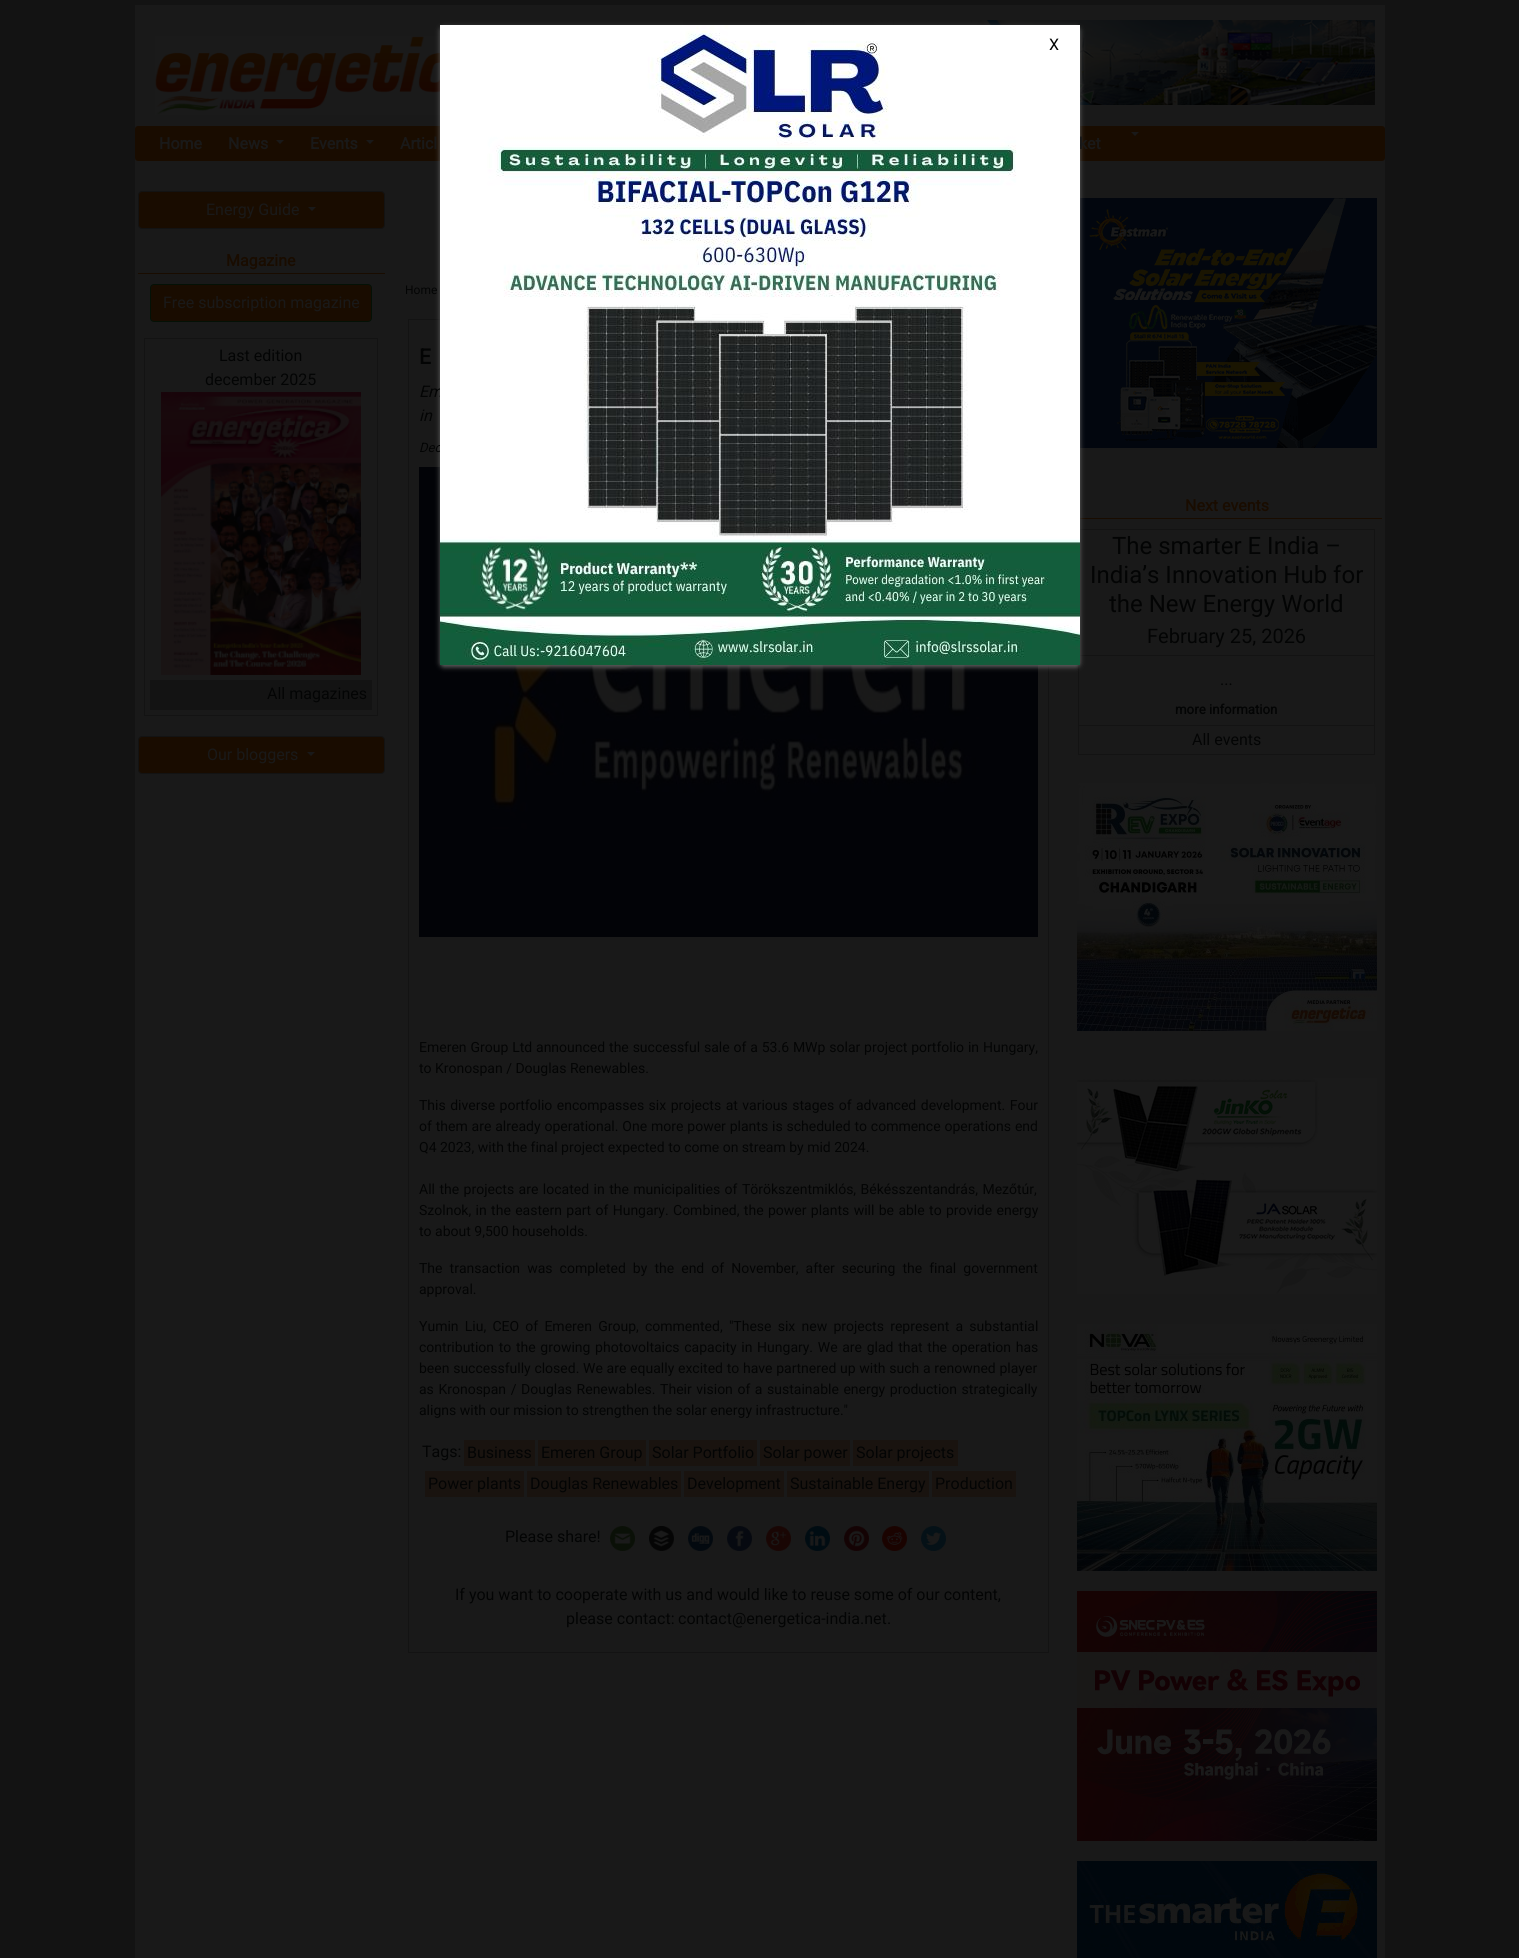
import math
import cairo

surface = cairo.ImageSurface(cairo.FORMAT_RGB24, 1519, 1958)
ctx = cairo.Context(surface)
options = cairo.FontOptions()
options.set_hint_metrics(cairo.HINT_METRICS_OFF)
options.set_hint_style(cairo.HINT_STYLE_NONE)
ctx.set_font_options(options)
ctx.set_miter_limit(4)


def spaced_text(x, y, s, letter, word):
    ctx.move_to(x, y)
    for ch in s:
        ctx.show_text(ch)
        ctx.rel_move_to(letter + word * (ch == ' '), 0)


def round_rect(x, y, w, h, r):
    ctx.new_sub_path()
    for i, (u, v) in enumerate([(x + w - r, y + h - r), (x + r, y + h - r), (x + r, y + r), (x + w - r, y + r)]):
        ctx.arc(u, v, r, i * math.pi / 2, (i + 1) * math.pi / 2)
    ctx.close_path()


def shadow(x, y, w, h, r, blur, alpha):
    ctx.push_group_with_content(cairo.CONTENT_ALPHA)
    ctx.set_operator(cairo.OPERATOR_SOURCE)
    for i in range(15, -16, -2):
        e = blur * i / 6
        if min(w, h) + 2 * e > 0:
            ctx.set_source_rgba(0, 0, 0, alpha * math.erfc((i - 1) / 8.5) / 2)
            round_rect(x - e, y - e, w + 2 * e, h + 2 * e, max(0, min(r + e + blur * .6, min(w, h) / 2 + e)))
            ctx.fill()
    ctx.mask(ctx.pop_group())


def picture(path, x, y, w, h):
    ctx.save()
    ctx.set_source_surface(cairo.ImageSurface.create_from_png(path), x, y)
    ctx.rectangle(x, y, w, h)
    ctx.fill()
    ctx.restore()


ctx.set_source_rgb(0.078, 0.078, 0.078)
ctx.paint()
ctx.set_source_rgb(0.098, 0.098, 0.098)
ctx.rectangle(135, 5, 1250, 1953)
ctx.fill()
picture("img2.png", 155, 36, 285, 79)
picture("img3.png", 683, 20, 692, 85)
ctx.set_source_rgb(0.098, 0.047, 0)
round_rect(135, 126, 1250, 35, 3)
ctx.fill()
ctx.rectangle(408.5, 319.5, 640, 1333)
ctx.set_source_rgb(0.078, 0.078, 0.078)
ctx.set_line_width(1)
ctx.stroke()
picture("img5.png", 419, 467, 619, 470)
picture("img15.png", 1080, 198, 297, 250)
ctx.set_source_rgb(0.098, 0.047, 0)
ctx.rectangle(1072, 518, 310, 1)
ctx.fill()
ctx.rectangle(1078.5, 529.5, 296, 225)
ctx.set_source_rgb(0.078, 0.078, 0.078)
ctx.stroke()
ctx.rectangle(1079, 655, 295, 1)
ctx.fill()
ctx.set_source_rgb(0.4, 0.4, 0.4)
shadow(440, 27, 640, 640, 4, 2.5, 1)
ctx.select_font_face("Roboto", cairo.FONT_SLANT_NORMAL, cairo.FONT_WEIGHT_BOLD)
ctx.set_font_size(16)
ctx.set_source_rgb(0.098, 0.098, 0.098)
ctx.move_to(1079, 149)
ctx.show_text("ket")
ctx.select_font_face("Roboto", cairo.FONT_SLANT_ITALIC)
ctx.set_source_rgb(0.012, 0.016, 0.016)
ctx.move_to(419, 397)
ctx.show_text("Em")
ctx.set_font_size(13)
ctx.move_to(419, 452)
ctx.show_text("Dec")
picture("img1.png", 440, 25, 640, 640)
ctx.select_font_face("Roboto")
ctx.set_font_size(16)
ctx.move_to(1049, 50)
ctx.show_text("X")
ctx.set_source_rgb(0.098, 0.098, 0.098)
ctx.new_path()
ctx.move_to(1131, 132)
ctx.line_to(1139, 132)
ctx.line_to(1135, 136)
ctx.close_path()
ctx.fill()
ctx.select_font_face("Roboto", cairo.FONT_SLANT_NORMAL, cairo.FONT_WEIGHT_BOLD)
ctx.move_to(159, 149)
ctx.show_text("Home")
ctx.move_to(228, 149)
ctx.show_text("News")
ctx.new_path()
ctx.move_to(276, 140)
ctx.line_to(284, 140)
ctx.line_to(280, 144)
ctx.close_path()
ctx.fill()
ctx.move_to(310, 149)
ctx.show_text("Events")
ctx.new_path()
ctx.move_to(366, 140)
ctx.line_to(374, 140)
ctx.line_to(370, 144)
ctx.close_path()
ctx.fill()
ctx.move_to(400, 149)
ctx.show_text("Articl")
ctx.set_source_rgb(0.098, 0.047, 0)
round_rect(138.5, 191.5, 246, 37, 3.5)
ctx.fill_preserve()
ctx.set_source_rgb(0.078, 0.078, 0.078)
ctx.stroke()
ctx.select_font_face("Roboto")
ctx.set_source_rgb(0.098, 0.098, 0.098)
ctx.move_to(206, 215)
ctx.show_text("Energy Guide")
ctx.new_path()
ctx.move_to(308, 207)
ctx.line_to(316, 207)
ctx.line_to(312, 211)
ctx.close_path()
ctx.fill()
ctx.set_source_rgb(0.098, 0.047, 0)
ctx.rectangle(138, 273, 247, 1)
ctx.fill()
ctx.select_font_face("Roboto", cairo.FONT_SLANT_NORMAL, cairo.FONT_WEIGHT_BOLD)
ctx.move_to(226, 266)
ctx.show_text("Magazine")
round_rect(150.5, 284.5, 221, 37, 3.5)
ctx.fill_preserve()
ctx.set_source_rgb(0.016, 0.067, 0.027)
ctx.stroke()
ctx.select_font_face("Roboto")
ctx.set_source_rgb(0.098, 0.098, 0.098)
ctx.move_to(163, 308)
ctx.show_text("Free subscription magazine")
ctx.rectangle(144.5, 338.5, 233, 377)
ctx.set_source_rgb(0.078, 0.078, 0.078)
ctx.stroke()
ctx.set_source_rgb(0.012, 0.016, 0.016)
ctx.move_to(219, 361)
ctx.show_text("Last edition")
ctx.move_to(205, 385)
ctx.show_text("december 2025")
picture("img4.png", 161, 392, 200, 283)
ctx.set_source_rgb(0.078, 0.078, 0.078)
ctx.rectangle(150, 680, 222, 30)
ctx.fill()
ctx.set_source_rgb(0.012, 0.016, 0.016)
ctx.move_to(267, 699)
ctx.show_text("All magazines")
ctx.set_source_rgb(0.098, 0.047, 0)
round_rect(138.5, 736.5, 246, 37, 3.5)
ctx.fill_preserve()
ctx.set_source_rgb(0.078, 0.078, 0.078)
ctx.stroke()
ctx.set_source_rgb(0.098, 0.098, 0.098)
ctx.move_to(207, 760)
ctx.show_text("Our bloggers")
ctx.new_path()
ctx.move_to(307, 752)
ctx.line_to(315, 752)
ctx.line_to(311, 756)
ctx.close_path()
ctx.fill()
ctx.set_font_size(12)
ctx.set_source_rgb(0.012, 0.016, 0.016)
ctx.move_to(405, 294)
ctx.show_text("Home")
ctx.select_font_face("Roboto", cairo.FONT_SLANT_NORMAL, cairo.FONT_WEIGHT_BOLD)
ctx.set_font_size(21)
ctx.move_to(419, 364)
ctx.show_text("E")
ctx.select_font_face("Roboto", cairo.FONT_SLANT_ITALIC)
ctx.set_font_size(16)
ctx.move_to(419, 421)
ctx.show_text("in")
ctx.select_font_face("Roboto")
ctx.set_font_size(14)
spaced_text(419, 1052, "Emeren Group Ltd announced the successful sale of a 53.6 MWp solar project portfolio in Hungary,", 0, 0.4)
ctx.move_to(419, 1073)
ctx.show_text("to Kronospan / Douglas Renewables.")
spaced_text(419, 1110, "This diverse portfolio encompasses six projects at various stages of advanced development. Four", 0, 1)
spaced_text(419, 1131, "of them are already operational. One more power plants is scheduled to commence operations end", 0, 0.4)
ctx.move_to(419, 1152)
ctx.show_text("Q4 2023, with the final project expected to come on stream by mid 2024.")
spaced_text(419, 1194, "All the projects are located in the municipalities of Törökszentmiklós, Békésszentandrás, Mezőtúr,", 0, 1)
spaced_text(419, 1215, "Szolnok, in the eastern part of Hungary. Combined, the power plants will be able to provide energy", 0, 0.9)
ctx.move_to(419, 1236)
ctx.show_text("to about 9,500 households.")
spaced_text(419, 1273, "The transaction was completed by the end of November, after securing the final government", 0, 3.6)
ctx.move_to(419, 1294)
ctx.show_text("approval.")
spaced_text(419, 1331, "Yumin Liu, CEO of Emeren Group, commented, \"These six new projects represent a substantial", 0, 2.75)
spaced_text(419, 1352, "contribution to the growing photovoltaics capacity in Hungary. We are glad that the operation has", 0, 1.2)
spaced_text(419, 1373, "been successfully closed. We are equally excited to have partnered up with such a renowned player", 0, 0.25)
spaced_text(419, 1394, "as Kronospan / Douglas Renewables. Their vision of a sustainable energy production strategically", 0, 1.1)
ctx.move_to(419, 1415)
ctx.show_text("aligns with our mission to strengthen the solar energy infrastructure.\"")
ctx.set_font_size(16)
ctx.move_to(422, 1457)
ctx.show_text("Tags:")
ctx.set_source_rgb(0.098, 0.078, 0.059)
ctx.rectangle(464, 1440, 71, 26)
ctx.fill()
ctx.set_source_rgb(0.012, 0.016, 0.016)
ctx.move_to(467, 1458)
ctx.show_text("Business")
ctx.set_source_rgb(0.098, 0.078, 0.059)
ctx.rectangle(538, 1440, 108, 26)
ctx.fill()
ctx.set_source_rgb(0.012, 0.016, 0.016)
ctx.move_to(541, 1458)
ctx.show_text("Emeren Group")
ctx.set_source_rgb(0.098, 0.078, 0.059)
ctx.rectangle(649, 1440, 108, 26)
ctx.fill()
ctx.set_source_rgb(0.012, 0.016, 0.016)
ctx.move_to(652, 1458)
ctx.show_text("Solar Portfolio")
ctx.set_source_rgb(0.098, 0.078, 0.059)
ctx.rectangle(760, 1440, 90, 26)
ctx.fill()
ctx.set_source_rgb(0.012, 0.016, 0.016)
ctx.move_to(763, 1458)
ctx.show_text("Solar power")
ctx.set_source_rgb(0.098, 0.078, 0.059)
ctx.rectangle(853, 1440, 105, 26)
ctx.fill()
ctx.set_source_rgb(0.012, 0.016, 0.016)
ctx.move_to(856, 1458)
ctx.show_text("Solar projects")
ctx.set_source_rgb(0.098, 0.078, 0.059)
ctx.rectangle(425, 1471, 99, 26)
ctx.fill()
ctx.set_source_rgb(0.012, 0.016, 0.016)
ctx.move_to(428, 1489)
ctx.show_text("Power plants")
ctx.set_source_rgb(0.098, 0.078, 0.059)
ctx.rectangle(527, 1471, 154, 26)
ctx.fill()
ctx.set_source_rgb(0.012, 0.016, 0.016)
ctx.move_to(530, 1489)
ctx.show_text("Douglas Renewables")
ctx.set_source_rgb(0.098, 0.078, 0.059)
ctx.rectangle(684, 1471, 100, 26)
ctx.fill()
ctx.set_source_rgb(0.012, 0.016, 0.016)
ctx.move_to(687, 1489)
ctx.show_text("Development")
ctx.set_source_rgb(0.098, 0.078, 0.059)
ctx.rectangle(787, 1471, 142, 26)
ctx.fill()
ctx.set_source_rgb(0.012, 0.016, 0.016)
ctx.move_to(790, 1489)
ctx.show_text("Sustainable Energy")
ctx.set_source_rgb(0.098, 0.078, 0.059)
ctx.rectangle(932, 1471, 84, 26)
ctx.fill()
ctx.set_source_rgb(0.012, 0.016, 0.016)
ctx.move_to(935, 1489)
ctx.show_text("Production")
ctx.move_to(505, 1542)
ctx.show_text("Please share!")
picture("img6.png", 610, 1526, 25, 25)
picture("img7.png", 649, 1526, 25, 25)
picture("img8.png", 688, 1526, 25, 25)
picture("img9.png", 727, 1526, 25, 25)
picture("img10.png", 766, 1526, 25, 25)
picture("img11.png", 805, 1526, 25, 25)
picture("img12.png", 844, 1526, 25, 25)
picture("img13.png", 882, 1526, 25, 25)
picture("img14.png", 921, 1526, 25, 25)
ctx.move_to(455, 1600)
ctx.show_text("If you want to cooperate with us and would like to reuse some of our content,")
ctx.move_to(566, 1624)
ctx.show_text("please contact:")
ctx.move_to(678, 1624)
ctx.show_text("contact@energetica-india.net")
ctx.move_to(887, 1624)
ctx.show_text(".")
ctx.select_font_face("Roboto", cairo.FONT_SLANT_NORMAL, cairo.FONT_WEIGHT_BOLD)
ctx.set_source_rgb(0.098, 0.047, 0)
ctx.move_to(1185, 511)
ctx.show_text("Next events")
ctx.select_font_face("Roboto")
ctx.set_font_size(24)
ctx.set_source_rgb(0.012, 0.016, 0.016)
ctx.move_to(1112, 554)
ctx.show_text("The smarter E India –")
ctx.move_to(1090, 583)
ctx.show_text("India’s Innovation Hub for")
ctx.move_to(1109, 612)
ctx.show_text("the New Energy World")
ctx.set_font_size(20)
ctx.move_to(1147, 643)
ctx.show_text("February 25, 2026")
ctx.set_font_size(16)
ctx.move_to(1220, 685)
ctx.show_text("...")
ctx.select_font_face("Roboto", cairo.FONT_SLANT_NORMAL, cairo.FONT_WEIGHT_BOLD)
ctx.set_font_size(13.25)
ctx.move_to(1175, 714)
ctx.show_text("more information")
ctx.set_source_rgb(0.078, 0.078, 0.078)
ctx.rectangle(1079, 725, 295, 1)
ctx.fill()
ctx.select_font_face("Roboto")
ctx.set_font_size(16)
ctx.set_source_rgb(0.012, 0.016, 0.016)
ctx.move_to(1192, 745)
ctx.show_text("All events")
picture("img16.png", 1077, 781, 300, 250)
picture("img17.png", 1077, 1078, 300, 216)
picture("img18.png", 1077, 1324, 300, 247)
picture("img19.png", 1077, 1591, 300, 250)
picture("img20.png", 1077, 1861, 300, 97)
surface.write_to_png("page.png")
